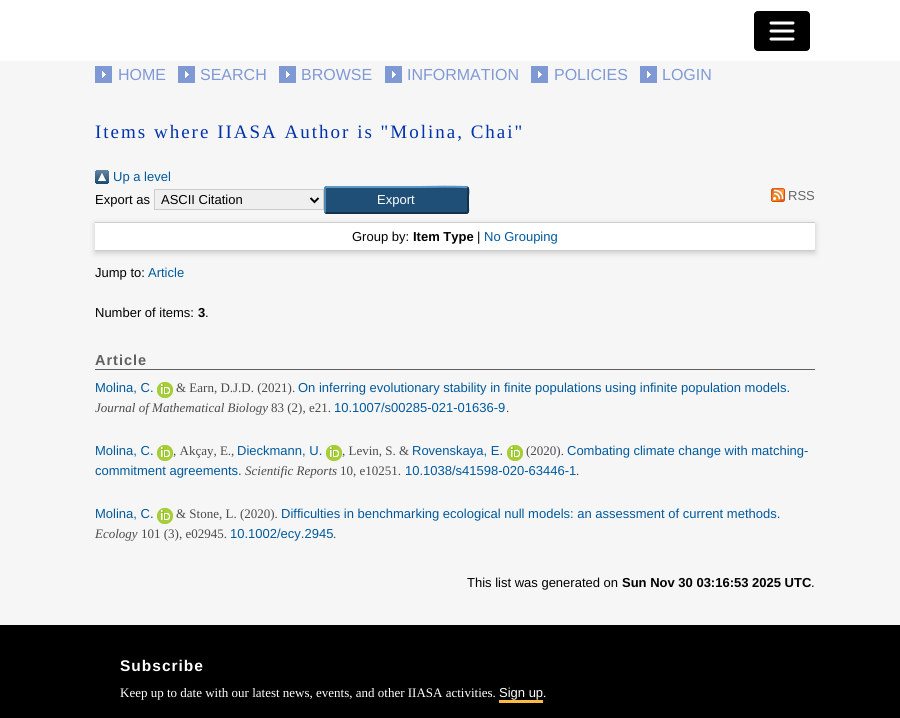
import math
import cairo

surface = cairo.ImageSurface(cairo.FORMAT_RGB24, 900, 718)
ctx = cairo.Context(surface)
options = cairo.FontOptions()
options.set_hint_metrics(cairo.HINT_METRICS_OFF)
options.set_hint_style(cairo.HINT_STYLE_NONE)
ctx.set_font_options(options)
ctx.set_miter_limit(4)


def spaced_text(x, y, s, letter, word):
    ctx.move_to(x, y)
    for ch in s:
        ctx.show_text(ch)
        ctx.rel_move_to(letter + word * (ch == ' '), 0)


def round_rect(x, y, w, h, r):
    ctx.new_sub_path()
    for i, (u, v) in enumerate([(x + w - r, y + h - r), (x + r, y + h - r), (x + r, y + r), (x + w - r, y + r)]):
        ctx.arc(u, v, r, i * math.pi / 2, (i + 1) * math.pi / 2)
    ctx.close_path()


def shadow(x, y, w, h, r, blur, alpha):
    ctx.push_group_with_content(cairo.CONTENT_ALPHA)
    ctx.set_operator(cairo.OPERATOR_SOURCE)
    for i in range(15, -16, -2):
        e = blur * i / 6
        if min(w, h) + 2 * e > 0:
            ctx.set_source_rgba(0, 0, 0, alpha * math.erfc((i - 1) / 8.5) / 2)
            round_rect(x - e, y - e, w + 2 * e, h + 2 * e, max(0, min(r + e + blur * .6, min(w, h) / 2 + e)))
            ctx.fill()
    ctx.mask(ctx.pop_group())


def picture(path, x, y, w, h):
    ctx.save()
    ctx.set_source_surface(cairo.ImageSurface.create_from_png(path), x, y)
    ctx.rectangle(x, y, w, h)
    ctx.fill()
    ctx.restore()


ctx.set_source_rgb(0.961, 0.961, 0.961)
ctx.paint()
ctx.set_source_rgb(1, 1, 1)
ctx.rectangle(0, 0, 900, 61)
ctx.fill()
ctx.set_source_rgb(0, 0, 0)
round_rect(754, 11, 56, 40, 4)
ctx.fill()
ctx.new_path()
ctx.move_to(771, 23)
ctx.line_to(793, 23)
ctx.move_to(771, 31)
ctx.line_to(793, 31)
ctx.move_to(771, 39)
ctx.line_to(793, 39)
ctx.set_source_rgb(1, 1, 1)
ctx.set_line_width(3)
ctx.set_line_cap(cairo.LINE_CAP_ROUND)
ctx.stroke()
picture("img1.png", 95, 66, 17, 17)
ctx.select_font_face("Liberation Sans")
ctx.set_font_size(16)
ctx.set_source_rgb(0.498, 0.6, 0.831)
ctx.move_to(118, 80)
ctx.show_text("HOME")
picture("img1.png", 178, 66, 17, 17)
ctx.move_to(200, 80)
ctx.show_text("SEARCH")
picture("img1.png", 279, 66, 17, 17)
ctx.move_to(301, 80)
ctx.show_text("BROWSE")
picture("img1.png", 385, 66, 17, 17)
ctx.move_to(407, 80)
ctx.show_text("INFORMATION")
picture("img1.png", 531, 66, 17, 17)
ctx.move_to(554, 80)
ctx.show_text("POLICIES")
picture("img1.png", 640, 66, 17, 17)
ctx.move_to(662, 80)
ctx.show_text("LOGIN")
ctx.select_font_face("Liberation Serif")
ctx.set_font_size(19)
ctx.set_source_rgb(0, 0.2, 0.667)
spaced_text(95, 138, "Items where IIASA Author is \"Molina, Chai\"", 2, 0)
picture("img2.png", 95, 170, 14, 14)
ctx.select_font_face("Liberation Sans")
ctx.set_font_size(13)
ctx.set_source_rgb(0, 0.349, 0.616)
ctx.move_to(113, 181)
ctx.show_text("Up a level")
ctx.set_source_rgb(0, 0, 0)
ctx.move_to(95, 204)
ctx.show_text("Export as")
ctx.set_source_rgb(0.937, 0.937, 0.937)
ctx.rectangle(154.5, 189.5, 169, 20)
ctx.fill_preserve()
ctx.set_source_rgb(0.8, 0.8, 0.8)
ctx.set_line_width(1)
ctx.set_line_cap(cairo.LINE_CAP_BUTT)
ctx.stroke()
ctx.new_path()
ctx.move_to(310.5, 198)
ctx.line_to(314.5, 202)
ctx.line_to(318.5, 198)
ctx.set_source_rgb(0, 0, 0)
ctx.set_line_width(2)
ctx.stroke()
ctx.move_to(161, 204)
ctx.show_text("ASCII Citation")
ctx.set_source_rgb(0.122, 0.31, 0.463)
round_rect(324, 186, 145, 28, 3)
ctx.fill()
ctx.new_path()
ctx.move_to(325.5, 187.5)
ctx.line_to(327, 187)
ctx.line_to(419.5, 187)
ctx.curve_to(422.5, 187, 466, 186, 467.5, 187.5)
ctx.set_source_rgb(0.357, 0.592, 0.78)
ctx.stroke()
ctx.new_path()
ctx.move_to(467.5, 187.5)
ctx.curve_to(469, 189.5, 468, 194.5, 468, 196.5)
ctx.line_to(468, 207.5)
ctx.curve_to(468, 209, 469, 213, 466, 213)
ctx.line_to(326.5, 213)
ctx.line_to(325.5, 212.5)
ctx.set_source_rgb(0.075, 0.196, 0.29)
ctx.stroke()
ctx.new_path()
ctx.move_to(325.5, 212.5)
ctx.curve_to(325, 212, 325, 211.5, 325, 211)
ctx.line_to(325, 189)
ctx.curve_to(325, 188.5, 325, 188, 325.5, 187.5)
ctx.set_source_rgb(0.322, 0.529, 0.702)
ctx.stroke()
ctx.set_source_rgb(1, 1, 1)
ctx.move_to(377, 204)
ctx.show_text("Export")
picture("img3.png", 771, 188, 14, 14)
ctx.set_source_rgb(0.4, 0.4, 0.4)
ctx.move_to(788, 200)
ctx.show_text("RSS")
ctx.set_source_rgb(0.392, 0.392, 0.392)
shadow(95, 224, 720, 29, 0, 3, 0.3)
ctx.set_source_rgb(1, 1, 1)
ctx.rectangle(95, 223, 720, 27)
ctx.fill()
ctx.set_source_rgb(0.8, 0.8, 0.8)
ctx.rectangle(95, 222, 720, 1)
ctx.fill()
ctx.rectangle(95, 250, 720, 1)
ctx.fill()
ctx.set_source_rgb(0, 0, 0)
ctx.move_to(352, 241)
ctx.show_text("Group by:")
ctx.select_font_face("Liberation Sans", cairo.FONT_SLANT_NORMAL, cairo.FONT_WEIGHT_BOLD)
ctx.move_to(413, 241)
ctx.show_text("Item Type")
ctx.select_font_face("Liberation Sans")
ctx.move_to(477, 241)
ctx.show_text("|")
ctx.set_source_rgb(0, 0.349, 0.616)
ctx.move_to(484, 241)
ctx.show_text("No Grouping")
ctx.set_source_rgb(0, 0, 0)
ctx.move_to(95, 277)
ctx.show_text("Jump to:")
ctx.set_source_rgb(0, 0.349, 0.616)
ctx.move_to(148, 277)
ctx.show_text("Article")
ctx.set_source_rgb(0, 0, 0)
ctx.move_to(95, 317)
ctx.show_text("Number of items:")
ctx.select_font_face("Liberation Sans", cairo.FONT_SLANT_NORMAL, cairo.FONT_WEIGHT_BOLD)
ctx.move_to(198, 317)
ctx.show_text("3")
ctx.select_font_face("Liberation Sans")
ctx.move_to(205, 317)
ctx.show_text(".")
ctx.set_source_rgb(0.376, 0.376, 0.376)
ctx.rectangle(95, 369, 720, 1)
ctx.fill()
ctx.select_font_face("Liberation Sans", cairo.FONT_SLANT_NORMAL, cairo.FONT_WEIGHT_BOLD)
ctx.set_font_size(14.5)
spaced_text(95, 365, "Article", 1, 0)
ctx.select_font_face("Liberation Sans")
ctx.set_font_size(13)
ctx.set_source_rgb(0, 0.349, 0.616)
ctx.move_to(95, 392)
ctx.show_text("Molina, C.")
picture("img4.png", 157, 382, 16, 16)
ctx.select_font_face("Liberation Serif")
ctx.set_source_rgb(0.294, 0.29, 0.302)
ctx.move_to(176, 392)
ctx.show_text("& Earn, D.J.D. (2021).")
ctx.select_font_face("Liberation Sans")
ctx.set_source_rgb(0, 0.349, 0.616)
ctx.move_to(298, 392)
ctx.show_text("On inferring evolutionary stability in finite populations using infinite population models.")
ctx.select_font_face("Liberation Serif", cairo.FONT_SLANT_ITALIC)
ctx.set_source_rgb(0.294, 0.29, 0.302)
ctx.move_to(95, 412)
ctx.show_text("Journal of Mathematical Biology")
ctx.select_font_face("Liberation Serif")
ctx.move_to(271, 412)
ctx.show_text("83 (2), e21.")
ctx.select_font_face("Liberation Sans")
ctx.set_source_rgb(0, 0.349, 0.616)
ctx.move_to(334, 412)
ctx.show_text("10.1007/s00285-021-01636-9")
ctx.select_font_face("Liberation Serif")
ctx.set_source_rgb(0.294, 0.29, 0.302)
ctx.move_to(506, 412)
ctx.show_text(".")
ctx.select_font_face("Liberation Sans")
ctx.set_source_rgb(0, 0.349, 0.616)
ctx.move_to(95, 455)
ctx.show_text("Molina, C.")
picture("img4.png", 157, 445, 16, 16)
ctx.select_font_face("Liberation Serif")
ctx.set_source_rgb(0.294, 0.29, 0.302)
ctx.move_to(173, 455)
ctx.show_text(", Akçay, E.,")
ctx.select_font_face("Liberation Sans")
ctx.set_source_rgb(0, 0.349, 0.616)
ctx.move_to(237, 455)
ctx.show_text("Dieckmann, U.")
picture("img4.png", 326, 445, 16, 16)
ctx.select_font_face("Liberation Serif")
ctx.set_source_rgb(0.294, 0.29, 0.302)
ctx.move_to(342, 455)
ctx.show_text(", Levin, S. &")
ctx.select_font_face("Liberation Sans")
ctx.set_source_rgb(0, 0.349, 0.616)
ctx.move_to(412, 455)
ctx.show_text("Rovenskaya, E.")
picture("img4.png", 507, 445, 16, 16)
ctx.select_font_face("Liberation Serif")
ctx.set_source_rgb(0.294, 0.29, 0.302)
ctx.move_to(526, 455)
ctx.show_text("(2020).")
ctx.select_font_face("Liberation Sans")
ctx.set_source_rgb(0, 0.349, 0.616)
ctx.move_to(567, 455)
ctx.show_text("Combating climate change with matching-")
ctx.move_to(95, 475)
ctx.show_text("commitment agreements.")
ctx.select_font_face("Liberation Serif", cairo.FONT_SLANT_ITALIC)
ctx.set_source_rgb(0.294, 0.29, 0.302)
ctx.move_to(245, 475)
ctx.show_text("Scientific Reports")
ctx.select_font_face("Liberation Serif")
ctx.move_to(340, 475)
ctx.show_text("10, e10251.")
ctx.select_font_face("Liberation Sans")
ctx.set_source_rgb(0, 0.349, 0.616)
ctx.move_to(405, 475)
ctx.show_text("10.1038/s41598-020-63446-1")
ctx.select_font_face("Liberation Serif")
ctx.set_source_rgb(0.294, 0.29, 0.302)
ctx.move_to(576, 475)
ctx.show_text(".")
ctx.select_font_face("Liberation Sans")
ctx.set_source_rgb(0, 0.349, 0.616)
ctx.move_to(95, 518)
ctx.show_text("Molina, C.")
picture("img4.png", 157, 508, 16, 16)
ctx.select_font_face("Liberation Serif")
ctx.set_source_rgb(0.294, 0.29, 0.302)
ctx.move_to(176, 518)
ctx.show_text("& Stone, L. (2020).")
ctx.select_font_face("Liberation Sans")
ctx.set_source_rgb(0, 0.349, 0.616)
ctx.move_to(281, 518)
ctx.show_text("Difficulties in benchmarking ecological null models: an assessment of current methods.")
ctx.select_font_face("Liberation Serif", cairo.FONT_SLANT_ITALIC)
ctx.set_source_rgb(0.294, 0.29, 0.302)
ctx.move_to(95, 538)
ctx.show_text("Ecology")
ctx.select_font_face("Liberation Serif")
ctx.move_to(141, 538)
ctx.show_text("101 (3), e02945.")
ctx.select_font_face("Liberation Sans")
ctx.set_source_rgb(0, 0.349, 0.616)
ctx.move_to(230, 538)
ctx.show_text("10.1002/ecy.2945")
ctx.select_font_face("Liberation Serif")
ctx.set_source_rgb(0.294, 0.29, 0.302)
ctx.move_to(333, 538)
ctx.show_text(".")
ctx.select_font_face("Liberation Sans")
ctx.set_source_rgb(0, 0, 0)
ctx.move_to(467, 587)
ctx.show_text("This list was generated on")
ctx.select_font_face("Liberation Sans", cairo.FONT_SLANT_NORMAL, cairo.FONT_WEIGHT_BOLD)
ctx.move_to(622, 587)
ctx.show_text("Sun Nov 30 03:16:53 2025 UTC")
ctx.select_font_face("Liberation Sans")
ctx.move_to(811, 587)
ctx.show_text(".")
ctx.rectangle(0, 625, 900, 93)
ctx.fill()
ctx.select_font_face("Liberation Sans", cairo.FONT_SLANT_NORMAL, cairo.FONT_WEIGHT_BOLD)
ctx.set_font_size(15.5)
ctx.set_source_rgb(1, 1, 1)
spaced_text(120, 671, "Subscribe", 1, 0)
ctx.select_font_face("Liberation Serif")
ctx.set_font_size(13)
ctx.move_to(120, 697)
ctx.show_text("Keep up to date with our latest news, events, and other IIASA activities.")
ctx.select_font_face("Liberation Sans")
ctx.move_to(499, 697)
ctx.show_text("Sign up")
ctx.set_source_rgb(0.992, 0.733, 0.251)
ctx.rectangle(499, 700, 44, 3)
ctx.fill()
ctx.select_font_face("Liberation Serif")
ctx.set_source_rgb(1, 1, 1)
ctx.move_to(543, 697)
ctx.show_text(".")
surface.write_to_png("page.png")
